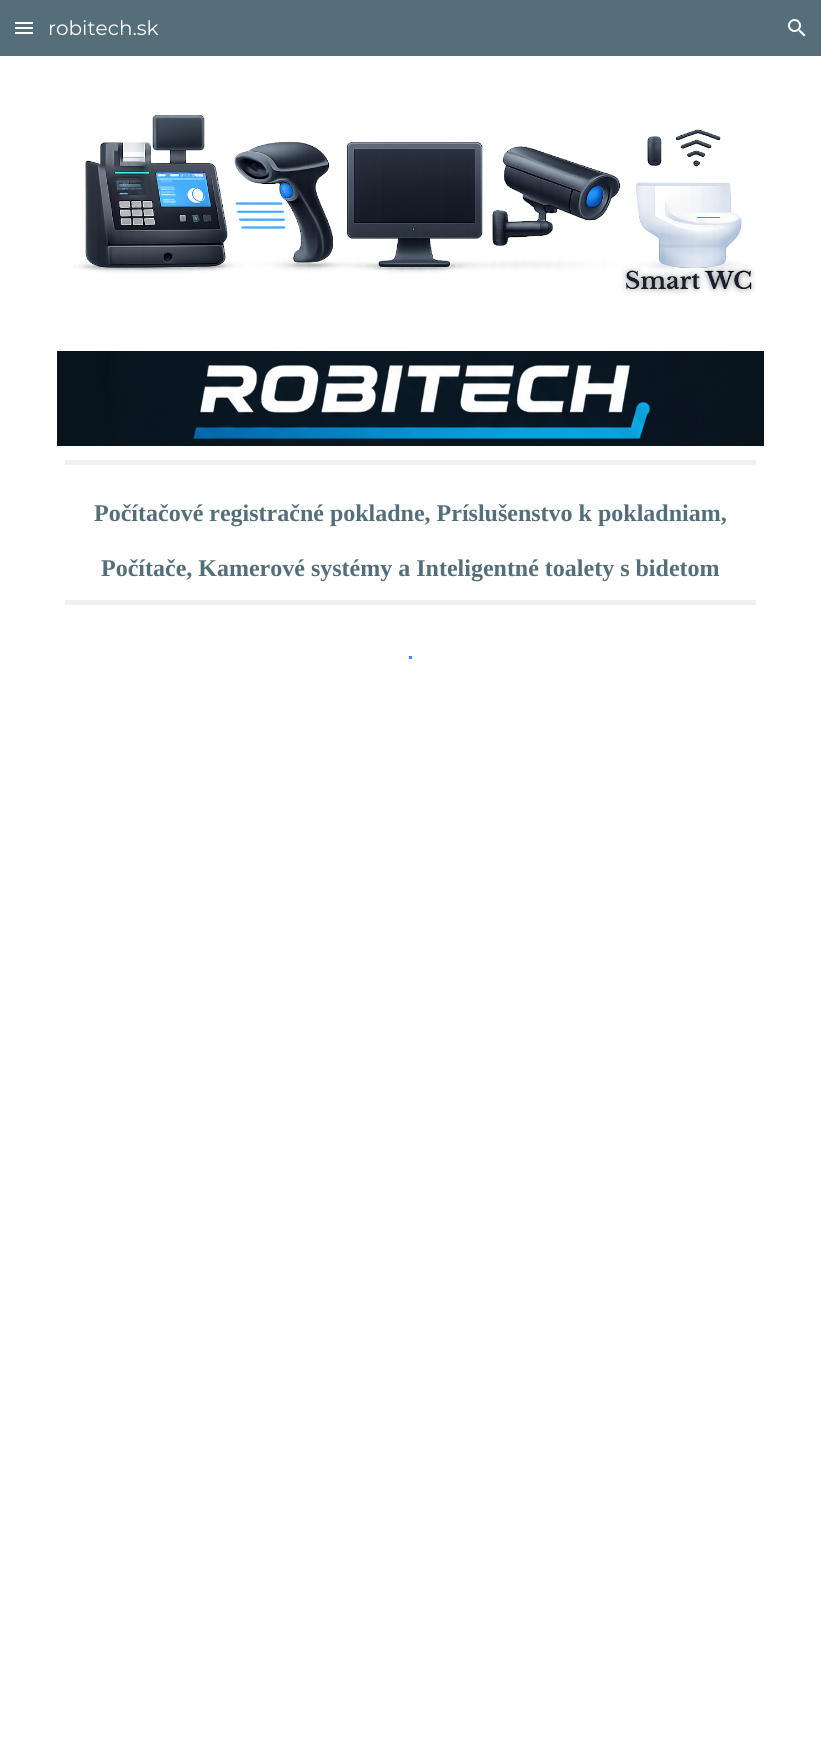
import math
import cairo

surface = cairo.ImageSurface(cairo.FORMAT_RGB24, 821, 1741)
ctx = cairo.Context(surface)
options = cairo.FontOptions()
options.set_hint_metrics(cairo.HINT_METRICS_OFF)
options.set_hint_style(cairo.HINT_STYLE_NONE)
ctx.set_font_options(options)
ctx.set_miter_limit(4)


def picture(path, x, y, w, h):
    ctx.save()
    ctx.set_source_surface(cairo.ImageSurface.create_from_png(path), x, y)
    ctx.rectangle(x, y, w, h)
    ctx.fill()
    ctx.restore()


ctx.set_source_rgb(1, 1, 1)
ctx.paint()
ctx.set_source_rgb(0.329, 0.431, 0.478)
ctx.rectangle(0, 0, 821, 56)
ctx.fill()
ctx.set_source_rgb(1, 1, 1)
ctx.rectangle(15, 22, 18, 2)
ctx.fill()
ctx.rectangle(15, 27, 18, 2)
ctx.fill()
ctx.rectangle(15, 32, 18, 2)
ctx.fill()
ctx.select_font_face("Montserrat")
ctx.set_font_size(20)
ctx.move_to(48, 35)
ctx.show_text("robitech.sk")
picture("img1.png", 788, 19, 18, 18)
picture("img2.png", 73, 115, 683, 179)
picture("img3.png", 57, 351, 707, 95)
ctx.set_source_rgb(0.941, 0.941, 0.941)
ctx.rectangle(65, 460, 691, 5)
ctx.fill()
ctx.rectangle(65, 600, 691, 5)
ctx.fill()
ctx.select_font_face("Liberation Serif", cairo.FONT_SLANT_NORMAL, cairo.FONT_WEIGHT_BOLD)
ctx.set_font_size(24)
ctx.set_source_rgb(0.329, 0.431, 0.478)
ctx.move_to(94, 521)
ctx.show_text("Počítačové registračné pokladne, Príslušenstvo k pokladniam,")
ctx.move_to(101, 576)
ctx.show_text("Počítače, Kamerové systémy a Inteligentné toalety s bidetom")
ctx.save()
ctx.rectangle(397, 656, 14, 28)
ctx.clip()
ctx.new_path()
ctx.move_to(409.5, 657.5)
ctx.curve_to(426, 656, 428, 681, 411.5, 682.5)
ctx.set_source_rgb(0.267, 0.525, 0.957)
ctx.set_line_width(3)
ctx.stroke()
ctx.restore()
ctx.save()
ctx.rectangle(409, 656, 3, 28)
ctx.clip()
ctx.new_path()
ctx.move_to(402, 679)
ctx.curve_to(399, 676, 398, 671.5, 398.5, 667.5)
ctx.curve_to(399.5, 664.5, 401, 661.5, 404, 659.5)
ctx.curve_to(416, 651, 429, 668.5, 419, 679)
ctx.set_source_rgb(0.267, 0.525, 0.957)
ctx.set_line_width(3)
ctx.stroke()
ctx.restore()
ctx.save()
ctx.rectangle(411, 656, 14, 28)
ctx.clip()
ctx.new_path()
ctx.move_to(409.5, 682.5)
ctx.curve_to(393, 681, 395, 656, 411.5, 657.5)
ctx.set_source_rgb(0.267, 0.525, 0.957)
ctx.set_line_width(3)
ctx.stroke()
ctx.restore()
ctx.save()
ctx.rectangle(397, 656, 14, 28)
ctx.clip()
ctx.new_path()
ctx.move_to(409.5, 657.5)
ctx.curve_to(426, 656, 428, 681, 411.5, 682.5)
ctx.move_to(409.5, 657.5)
ctx.curve_to(426, 656, 428, 681, 411.5, 682.5)
ctx.set_source_rgb(0.267, 0.525, 0.957)
ctx.set_line_width(3)
ctx.stroke()
ctx.restore()
surface.write_to_png("page.png")
